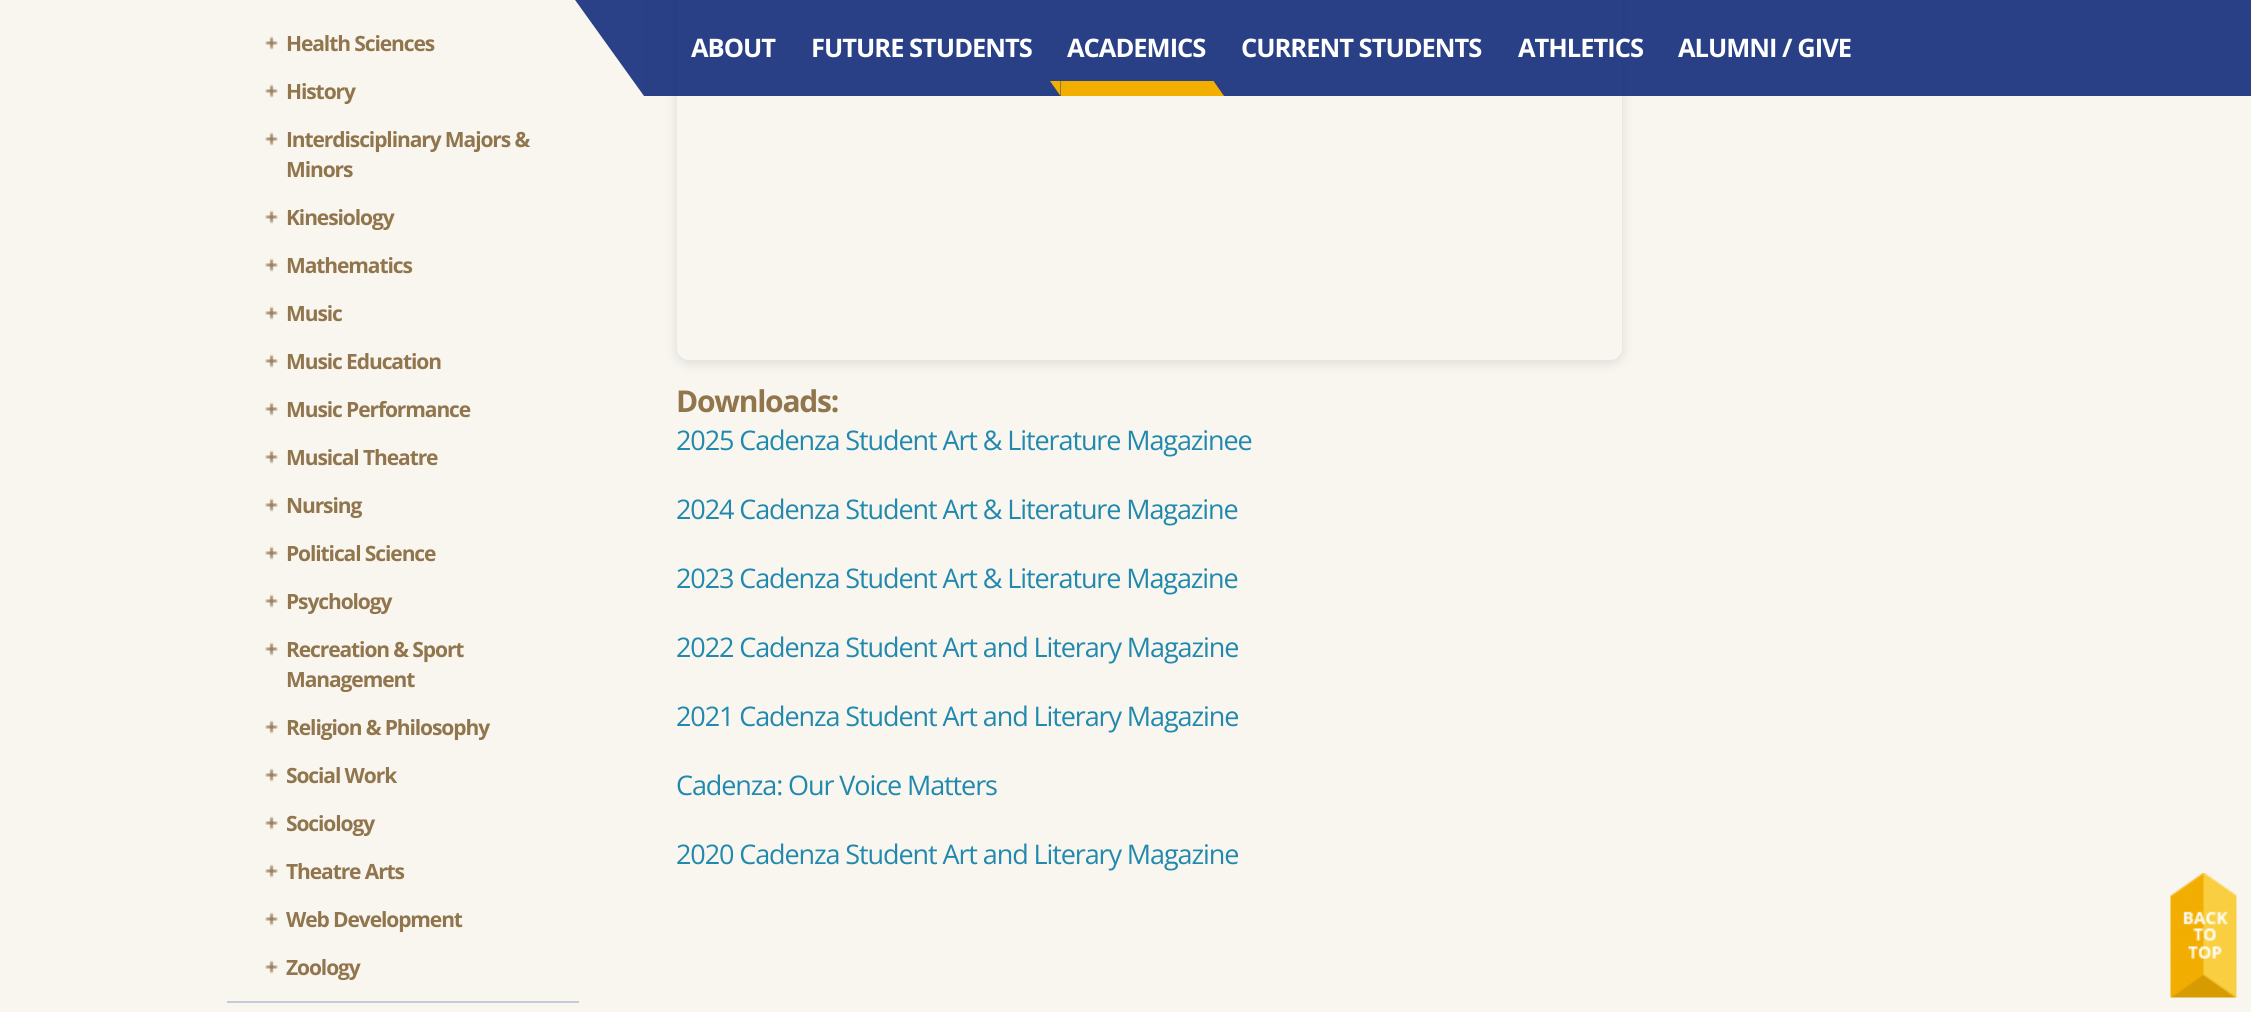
import math
import cairo

surface = cairo.ImageSurface(cairo.FORMAT_RGB24, 2251, 1012)
ctx = cairo.Context(surface)
options = cairo.FontOptions()
options.set_hint_metrics(cairo.HINT_METRICS_OFF)
options.set_hint_style(cairo.HINT_STYLE_NONE)
ctx.set_font_options(options)
ctx.set_miter_limit(4)


def spaced_text(x, y, s, letter, word):
    ctx.move_to(x, y)
    for ch in s:
        ctx.show_text(ch)
        ctx.rel_move_to(letter + word * (ch == ' '), 0)


def round_rect(x, y, w, h, r):
    ctx.new_sub_path()
    for i, (u, v) in enumerate([(x + w - r, y + h - r), (x + r, y + h - r), (x + r, y + r), (x + w - r, y + r)]):
        ctx.arc(u, v, r, i * math.pi / 2, (i + 1) * math.pi / 2)
    ctx.close_path()


def shadow(x, y, w, h, r, blur, alpha):
    ctx.push_group_with_content(cairo.CONTENT_ALPHA)
    ctx.set_operator(cairo.OPERATOR_SOURCE)
    for i in range(15, -16, -2):
        e = blur * i / 6
        if min(w, h) + 2 * e > 0:
            ctx.set_source_rgba(0, 0, 0, alpha * math.erfc((i - 1) / 8.5) / 2)
            round_rect(x - e, y - e, w + 2 * e, h + 2 * e, max(0, min(r + e + blur * .6, min(w, h) / 2 + e)))
            ctx.fill()
    ctx.mask(ctx.pop_group())


def picture(path, x, y, w, h):
    ctx.save()
    ctx.set_source_surface(cairo.ImageSurface.create_from_png(path), x, y)
    ctx.rectangle(x, y, w, h)
    ctx.fill()
    ctx.restore()


ctx.set_source_rgb(0.973, 0.961, 0.941)
ctx.paint()
ctx.set_source_rgb(0.769, 0.796, 0.839)
ctx.rectangle(227, 1001, 352, 2)
ctx.fill()
picture("img1.png", 265, 36, 13, 14)
ctx.select_font_face("Open Sans", cairo.FONT_SLANT_NORMAL, cairo.FONT_WEIGHT_BOLD)
ctx.set_font_size(21)
ctx.set_source_rgb(0.565, 0.459, 0.302)
spaced_text(286, 51, "Health Sciences", -1.1, 0)
picture("img1.png", 265, 84, 13, 14)
spaced_text(286, 99, "History", -1.1, 0)
picture("img1.png", 265, 132, 13, 14)
spaced_text(286, 147, "Interdisciplinary Majors &", -1.1, 0)
spaced_text(286, 177, "Minors", -1.1, 0)
picture("img1.png", 265, 210, 13, 14)
spaced_text(286, 225, "Kinesiology", -1.1, 0)
picture("img1.png", 265, 258, 13, 14)
spaced_text(286, 273, "Mathematics", -1.1, 0)
picture("img1.png", 265, 306, 13, 14)
spaced_text(286, 321, "Music", -1.1, 0)
picture("img1.png", 265, 354, 13, 14)
spaced_text(286, 369, "Music Education", -1.1, 0)
picture("img1.png", 265, 402, 13, 14)
spaced_text(286, 417, "Music Performance", -1.1, 0)
picture("img1.png", 265, 450, 13, 14)
spaced_text(286, 465, "Musical Theatre", -1.1, 0)
picture("img1.png", 265, 498, 13, 14)
spaced_text(286, 513, "Nursing", -1.1, 0)
picture("img1.png", 265, 546, 13, 14)
spaced_text(286, 561, "Political Science", -1.1, 0)
picture("img1.png", 265, 594, 13, 14)
spaced_text(286, 609, "Psychology", -1.1, 0)
picture("img1.png", 265, 642, 13, 14)
spaced_text(286, 657, "Recreation & Sport", -1.1, 0)
spaced_text(286, 687, "Management", -1.1, 0)
picture("img1.png", 265, 720, 13, 14)
spaced_text(286, 735, "Religion & Philosophy", -1.1, 0)
picture("img1.png", 265, 768, 13, 14)
spaced_text(286, 783, "Social Work", -1.1, 0)
picture("img1.png", 265, 816, 13, 14)
spaced_text(286, 831, "Sociology", -1.1, 0)
picture("img1.png", 265, 864, 13, 14)
spaced_text(286, 879, "Theatre Arts", -1.1, 0)
picture("img1.png", 265, 912, 13, 14)
spaced_text(286, 927, "Web Development", -1.1, 0)
picture("img1.png", 265, 960, 13, 14)
spaced_text(286, 975, "Zoology", -1.1, 0)
ctx.save()
ctx.set_fill_rule(cairo.FILL_RULE_EVEN_ODD)
ctx.new_path()
ctx.move_to(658, 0)
ctx.line_to(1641, 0)
ctx.line_to(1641, 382)
ctx.line_to(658, 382)
ctx.close_path()
ctx.move_to(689, -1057)
ctx.line_to(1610, -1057)
ctx.curve_to(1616.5, -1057, 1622, -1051.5, 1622, -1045)
ctx.line_to(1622, 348)
ctx.curve_to(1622, 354.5, 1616.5, 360, 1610, 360)
ctx.line_to(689, 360)
ctx.curve_to(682.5, 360, 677, 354.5, 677, 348)
ctx.line_to(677, -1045)
ctx.curve_to(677, -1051.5, 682.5, -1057, 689, -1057)
ctx.close_path()
ctx.clip()
ctx.set_source_rgb(0.247, 0.271, 0.318)
shadow(677, -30, 945, 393, 12, 6, 0.16)
ctx.restore()
ctx.set_font_size(30)
spaced_text(676, 412, "Downloads:", -1.25, 0)
ctx.select_font_face("Open Sans")
ctx.set_font_size(27)
ctx.set_source_rgb(0.129, 0.537, 0.678)
spaced_text(676, 450, "2025 Cadenza Student Art & Literature Magazinee", -1.1, 0)
spaced_text(676, 519, "2024 Cadenza Student Art & Literature Magazine", -1.1, 0)
spaced_text(676, 588, "2023 Cadenza Student Art & Literature Magazine", -1.1, 0)
spaced_text(676, 657, "2022 Cadenza Student Art and Literary Magazine", -1.1, 0)
spaced_text(676, 726, "2021 Cadenza Student Art and Literary Magazine", -1.1, 0)
spaced_text(676, 795, "Cadenza: Our Voice Matters", -1.1, 0)
spaced_text(676, 864, "2020 Cadenza Student Art and Literary Magazine", -1.1, 0)
ctx.set_source_rgb(0.165, 0.255, 0.529)
ctx.new_path()
ctx.move_to(644, -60)
ctx.line_to(644, 96)
ctx.line_to(532, -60)
ctx.close_path()
ctx.fill()
ctx.set_source_rgba(0, 0.11, 0.447, 0.83)
ctx.rectangle(644, 0, 1607, 96)
ctx.fill()
ctx.select_font_face("Open Sans", cairo.FONT_SLANT_NORMAL, cairo.FONT_WEIGHT_BOLD)
ctx.set_font_size(25.5)
ctx.set_source_rgb(1, 1, 1)
spaced_text(691, 57, "ABOUT", -1, 0)
spaced_text(811, 57, "FUTURE STUDENTS", -1, 0)
spaced_text(1067, 57, "ACADEMICS", -1, 0)
ctx.set_source_rgb(0.949, 0.686, 0)
ctx.rectangle(1061, 81, 153, 15)
ctx.fill()
ctx.new_path()
ctx.move_to(1060.5, 81)
ctx.line_to(1060.5, 96)
ctx.line_to(1050, 81)
ctx.close_path()
ctx.fill()
ctx.new_path()
ctx.move_to(1213.5, 96)
ctx.line_to(1213.5, 81)
ctx.line_to(1224, 96)
ctx.close_path()
ctx.fill()
ctx.set_source_rgb(1, 1, 1)
spaced_text(1241, 57, "CURRENT STUDENTS", -1, 0)
spaced_text(1518, 57, "ATHLETICS", -1, 0)
spaced_text(1678, 57, "ALUMNI / GIVE", -1, 0)
picture("img2.png", 2170, 873, 67, 125)
surface.write_to_png("page.png")
